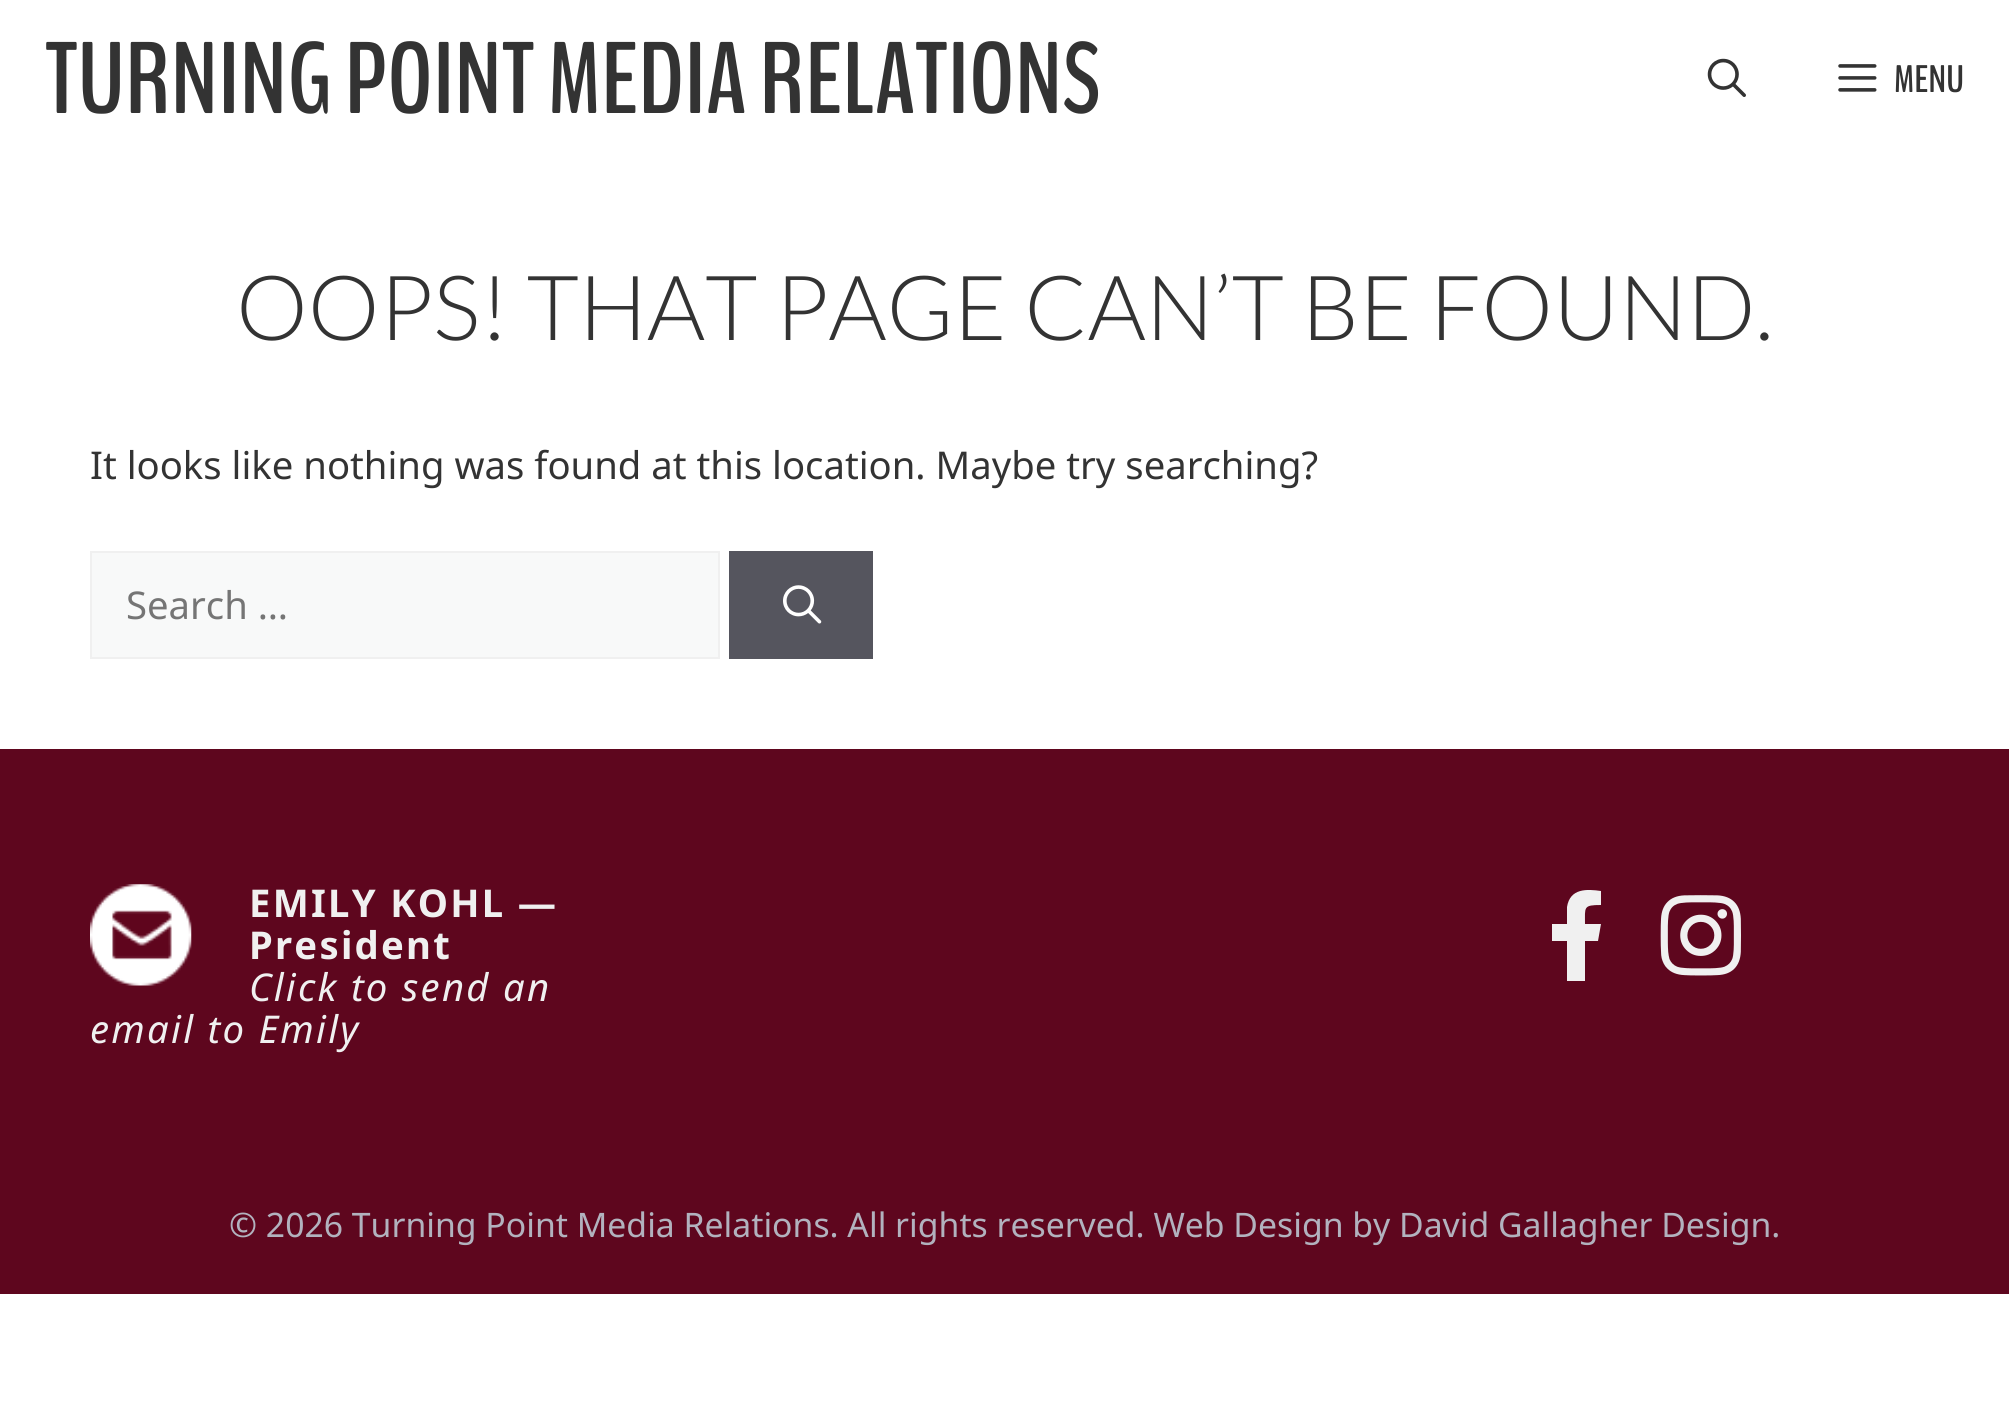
import math
import cairo

surface = cairo.ImageSurface(cairo.FORMAT_RGB24, 2009, 1410)
ctx = cairo.Context(surface)
options = cairo.FontOptions()
options.set_hint_metrics(cairo.HINT_METRICS_OFF)
options.set_hint_style(cairo.HINT_STYLE_NONE)
ctx.set_font_options(options)
ctx.set_miter_limit(4)


def spaced_text(x, y, s, letter, word):
    ctx.move_to(x, y)
    for ch in s:
        ctx.show_text(ch)
        ctx.rel_move_to(letter + word * (ch == ' '), 0)


def picture(path, x, y, w, h):
    ctx.save()
    ctx.set_source_surface(cairo.ImageSurface.create_from_png(path), x, y)
    ctx.rectangle(x, y, w, h)
    ctx.fill()
    ctx.restore()


ctx.set_source_rgb(1, 1, 1)
ctx.paint()
ctx.select_font_face("BenchNine", cairo.FONT_SLANT_NORMAL, cairo.FONT_WEIGHT_BOLD)
ctx.set_font_size(101.25)
ctx.set_source_rgb(0.2, 0.2, 0.2)
ctx.move_to(45, 113)
ctx.show_text("TURNING POINT MEDIA RELATIONS")
picture("img1.png", 1707, 58, 39, 39)
picture("img2.png", 1838, 64, 39, 28)
ctx.set_font_size(38.25)
ctx.move_to(1894, 92)
ctx.show_text("MENU")
ctx.select_font_face("Lato Light")
ctx.set_font_size(90)
ctx.move_to(236, 340)
ctx.show_text("OOPS! THAT PAGE CAN’T BE FOUND.")
ctx.select_font_face("Noto Sans")
ctx.set_font_size(38.25)
ctx.move_to(90, 479)
ctx.show_text("It looks like nothing was found at this location. Maybe try searching?")
ctx.set_source_rgb(0.969, 0.973, 0.976)
ctx.rectangle(91, 552, 628, 106)
ctx.fill_preserve()
ctx.set_source_rgb(0.941, 0.941, 0.941)
ctx.stroke()
ctx.set_source_rgb(0.459, 0.459, 0.459)
ctx.move_to(126, 619)
ctx.show_text("Search …")
ctx.set_source_rgb(0.333, 0.333, 0.369)
ctx.rectangle(729, 551, 144, 108)
ctx.fill()
picture("img3.png", 783, 585, 39, 39)
ctx.set_source_rgb(0.369, 0.027, 0.118)
ctx.rectangle(0, 749, 2009, 545)
ctx.fill()
picture("img4.png", 90, 884, 102, 102)
ctx.select_font_face("Noto Sans", cairo.FONT_SLANT_NORMAL, cairo.FONT_WEIGHT_BOLD)
ctx.set_source_rgb(0.941, 0.941, 0.941)
spaced_text(249, 917, "EMILY KOHL —", 2.25, 0)
spaced_text(249, 959, "President", 2.25, 0)
ctx.select_font_face("Noto Sans", cairo.FONT_SLANT_ITALIC)
spaced_text(249, 1001, "Click to send an", 2.25, 0)
spaced_text(90, 1043, "email to Emily", 2.25, 0)
ctx.new_path()
ctx.move_to(1598, 941)
ctx.line_to(1585, 941)
ctx.line_to(1585, 981)
ctx.line_to(1567, 981)
ctx.line_to(1567, 941)
ctx.line_to(1552, 941)
ctx.line_to(1552, 924)
ctx.line_to(1567, 924)
ctx.line_to(1567, 907)
ctx.curve_to(1570, 888, 1587, 889, 1601, 891)
ctx.line_to(1601, 905)
ctx.curve_to(1583, 905, 1585, 907, 1585, 924)
ctx.line_to(1601, 924)
ctx.close_path()
ctx.fill()
picture("img5.png", 1660, 895, 81, 81)
ctx.select_font_face("Noto Sans")
ctx.set_font_size(33.75)
ctx.set_source_rgb(0.698, 0.698, 0.745)
ctx.move_to(229, 1237)
ctx.show_text("© 2026 Turning Point Media Relations. All rights reserved. Web Design by David Gallagher Design.")
surface.write_to_png("page.png")
